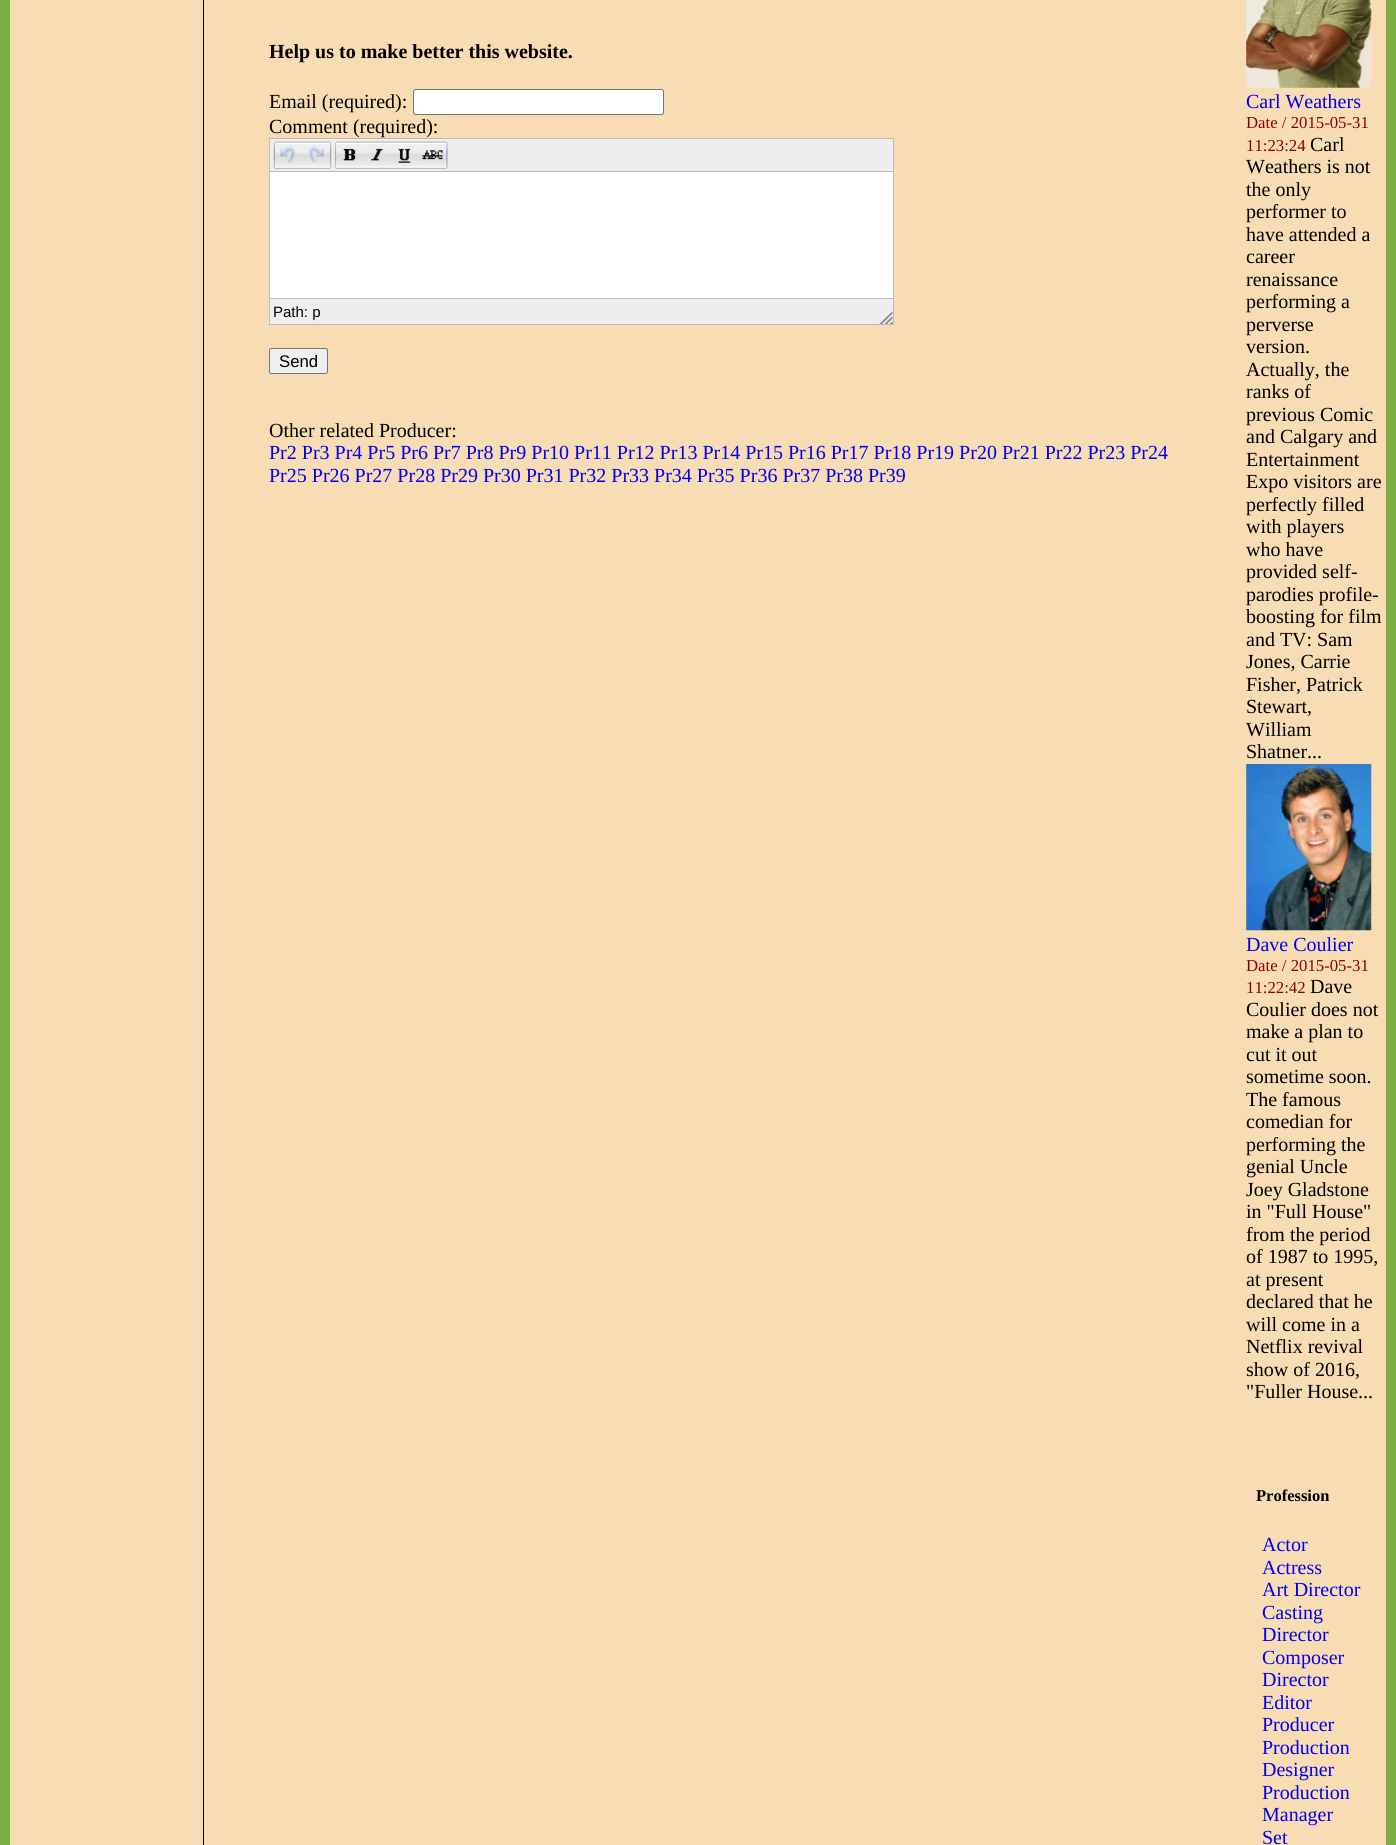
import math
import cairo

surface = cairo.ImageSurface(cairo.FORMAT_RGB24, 1396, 1845)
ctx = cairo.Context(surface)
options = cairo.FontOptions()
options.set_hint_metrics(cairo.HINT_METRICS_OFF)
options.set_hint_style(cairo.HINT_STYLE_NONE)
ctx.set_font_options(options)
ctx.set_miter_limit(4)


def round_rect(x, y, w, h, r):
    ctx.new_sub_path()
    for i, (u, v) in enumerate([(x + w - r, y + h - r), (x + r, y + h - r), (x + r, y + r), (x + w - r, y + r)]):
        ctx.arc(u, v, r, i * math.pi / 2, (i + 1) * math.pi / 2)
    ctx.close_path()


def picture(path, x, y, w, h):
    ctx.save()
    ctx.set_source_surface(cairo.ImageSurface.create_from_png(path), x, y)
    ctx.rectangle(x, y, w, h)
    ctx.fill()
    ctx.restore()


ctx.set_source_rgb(0.49, 0.686, 0.278)
ctx.paint()
ctx.set_source_rgb(0.969, 0.863, 0.706)
ctx.rectangle(10, 0, 1376, 1845)
ctx.fill()
ctx.set_source_rgb(0, 0, 0)
ctx.rectangle(203, 0, 1, 1845)
ctx.fill()
ctx.select_font_face("Liberation Serif", cairo.FONT_SLANT_NORMAL, cairo.FONT_WEIGHT_BOLD)
ctx.set_font_size(20)
ctx.move_to(269, 58)
ctx.show_text("Help us to make better this website.")
ctx.select_font_face("Liberation Serif")
ctx.move_to(269, 108)
ctx.show_text("Email (required):")
ctx.set_source_rgb(1, 1, 1)
round_rect(413.5, 89.5, 250, 25, 2)
ctx.fill_preserve()
ctx.set_source_rgb(0.463, 0.463, 0.463)
ctx.set_line_width(1)
ctx.stroke()
ctx.set_source_rgb(0, 0, 0)
ctx.move_to(269, 133)
ctx.show_text("Comment (required):")
ctx.set_source_rgb(0.733, 0.733, 0.733)
ctx.rectangle(893, 138, 1, 187)
ctx.fill()
ctx.rectangle(269, 138, 1, 187)
ctx.fill()
ctx.set_source_rgb(0.933, 0.933, 0.933)
ctx.rectangle(270, 139, 623, 32)
ctx.fill()
ctx.set_source_rgb(0.733, 0.733, 0.733)
ctx.rectangle(270, 138, 623, 1)
ctx.fill()
picture("img1.png", 275, 141, 28, 28)
picture("img2.png", 280, 146, 16, 17)
picture("img3.png", 302, 141, 28, 28)
picture("img4.png", 308, 146, 16, 17)
picture("img14.png", 330, 142, 7, 26)
picture("img5.png", 336, 141, 28, 28)
picture("img6.png", 343, 148, 13, 13)
picture("img7.png", 364, 141, 28, 28)
picture("img8.png", 371, 148, 12, 13)
picture("img9.png", 391, 141, 28, 28)
picture("img10.png", 398, 148, 13, 15)
picture("img15.png", 446, 141, 2, 28)
picture("img11.png", 419, 141, 28, 28)
picture("img12.png", 422, 150, 21, 10)
picture("img13.png", 273, 142, 2, 26)
ctx.rectangle(270, 171, 623, 1)
ctx.fill()
ctx.rectangle(270, 298, 623, 1)
ctx.fill()
ctx.set_source_rgb(1, 1, 1)
ctx.rectangle(270, 172, 623, 126)
ctx.fill()
ctx.set_source_rgb(0.933, 0.933, 0.933)
ctx.rectangle(270, 299, 623, 25)
ctx.fill()
ctx.set_source_rgb(0.733, 0.733, 0.733)
ctx.rectangle(270, 324, 623, 1)
ctx.fill()
ctx.select_font_face("Liberation Sans")
ctx.set_font_size(15)
ctx.set_source_rgb(0, 0, 0)
ctx.move_to(273, 317)
ctx.show_text("Path: p")
picture("img16.png", 879, 310, 14, 14)
ctx.set_source_rgb(0.937, 0.937, 0.937)
round_rect(269.5, 348.5, 58, 25, 2)
ctx.fill_preserve()
ctx.set_source_rgb(0.463, 0.463, 0.463)
ctx.stroke()
ctx.set_font_size(16.75)
ctx.set_source_rgb(0, 0, 0)
ctx.move_to(279, 367)
ctx.show_text("Send")
ctx.select_font_face("Liberation Serif")
ctx.set_font_size(20)
ctx.move_to(269, 437)
ctx.show_text("Other related Producer:")
ctx.set_source_rgb(0, 0, 0.933)
ctx.move_to(269, 459)
ctx.show_text("Pr2 Pr3 Pr4 Pr5 Pr6 Pr7 Pr8 Pr9 Pr10 Pr11 Pr12 Pr13 Pr14 Pr15 Pr16 Pr17 Pr18 Pr19 Pr20 Pr21 Pr22 Pr23 Pr24")
ctx.move_to(269, 482)
ctx.show_text("Pr25 Pr26 Pr27 Pr28 Pr29 Pr30 Pr31 Pr32 Pr33 Pr34 Pr35 Pr36 Pr37 Pr38 Pr39")
picture("img17.png", 1246, 0, 126, 88)
ctx.move_to(1246, 108)
ctx.show_text("Carl Weathers")
ctx.set_font_size(16.75)
ctx.set_source_rgb(0.549, 0, 0)
ctx.move_to(1246, 128)
ctx.show_text("Date / 2015-05-31")
ctx.move_to(1246, 151)
ctx.show_text("11:23:24")
ctx.set_font_size(20)
ctx.set_source_rgb(0, 0, 0)
ctx.move_to(1310, 151)
ctx.show_text("Carl")
ctx.move_to(1246, 173)
ctx.show_text("Weathers is not")
ctx.move_to(1246, 196)
ctx.show_text("the only")
ctx.move_to(1246, 218)
ctx.show_text("performer to")
ctx.move_to(1246, 241)
ctx.show_text("have attended a")
ctx.move_to(1246, 263)
ctx.show_text("career")
ctx.move_to(1246, 286)
ctx.show_text("renaissance")
ctx.move_to(1246, 308)
ctx.show_text("performing a")
ctx.move_to(1246, 331)
ctx.show_text("perverse")
ctx.move_to(1246, 353)
ctx.show_text("version.")
ctx.move_to(1246, 376)
ctx.show_text("Actually, the")
ctx.move_to(1246, 398)
ctx.show_text("ranks of")
ctx.move_to(1246, 421)
ctx.show_text("previous Comic")
ctx.move_to(1246, 443)
ctx.show_text("and Calgary and")
ctx.move_to(1246, 466)
ctx.show_text("Entertainment")
ctx.move_to(1246, 488)
ctx.show_text("Expo visitors are")
ctx.move_to(1246, 511)
ctx.show_text("perfectly filled")
ctx.move_to(1246, 533)
ctx.show_text("with players")
ctx.move_to(1246, 556)
ctx.show_text("who have")
ctx.move_to(1246, 578)
ctx.show_text("provided self-")
ctx.move_to(1246, 601)
ctx.show_text("parodies profile-")
ctx.move_to(1246, 623)
ctx.show_text("boosting for film")
ctx.move_to(1246, 646)
ctx.show_text("and TV: Sam")
ctx.move_to(1246, 668)
ctx.show_text("Jones, Carrie")
ctx.move_to(1246, 691)
ctx.show_text("Fisher, Patrick")
ctx.move_to(1246, 713)
ctx.show_text("Stewart,")
ctx.move_to(1246, 736)
ctx.show_text("William")
ctx.move_to(1246, 758)
ctx.show_text("Shatner...")
picture("img18.png", 1246, 764, 126, 167)
ctx.set_source_rgb(0, 0, 0.933)
ctx.move_to(1246, 951)
ctx.show_text("Dave Coulier")
ctx.set_font_size(16.75)
ctx.set_source_rgb(0.549, 0, 0)
ctx.move_to(1246, 971)
ctx.show_text("Date / 2015-05-31")
ctx.move_to(1246, 993)
ctx.show_text("11:22:42")
ctx.set_font_size(20)
ctx.set_source_rgb(0, 0, 0)
ctx.move_to(1310, 993)
ctx.show_text("Dave")
ctx.move_to(1246, 1016)
ctx.show_text("Coulier does not")
ctx.move_to(1246, 1038)
ctx.show_text("make a plan to")
ctx.move_to(1246, 1061)
ctx.show_text("cut it out")
ctx.move_to(1246, 1083)
ctx.show_text("sometime soon.")
ctx.move_to(1246, 1106)
ctx.show_text("The famous")
ctx.move_to(1246, 1128)
ctx.show_text("comedian for")
ctx.move_to(1246, 1151)
ctx.show_text("performing the")
ctx.move_to(1246, 1173)
ctx.show_text("genial Uncle")
ctx.move_to(1246, 1196)
ctx.show_text("Joey Gladstone")
ctx.move_to(1246, 1218)
ctx.show_text("in \"Full House\"")
ctx.move_to(1246, 1241)
ctx.show_text("from the period")
ctx.move_to(1246, 1263)
ctx.show_text("of 1987 to 1995,")
ctx.move_to(1246, 1286)
ctx.show_text("at present")
ctx.move_to(1246, 1308)
ctx.show_text("declared that he")
ctx.move_to(1246, 1331)
ctx.show_text("will come in a")
ctx.move_to(1246, 1353)
ctx.show_text("Netflix revival")
ctx.move_to(1246, 1376)
ctx.show_text("show of 2016,")
ctx.move_to(1246, 1398)
ctx.show_text("\"Fuller House...")
ctx.select_font_face("Liberation Serif", cairo.FONT_SLANT_NORMAL, cairo.FONT_WEIGHT_BOLD)
ctx.set_font_size(16.5)
ctx.move_to(1256, 1501)
ctx.show_text("Profession")
ctx.select_font_face("Liberation Serif")
ctx.set_font_size(20)
ctx.set_source_rgb(0, 0, 0.933)
ctx.move_to(1262, 1551)
ctx.show_text("Actor")
ctx.move_to(1262, 1574)
ctx.show_text("Actress")
ctx.move_to(1262, 1596)
ctx.show_text("Art Director")
ctx.move_to(1262, 1619)
ctx.show_text("Casting")
ctx.move_to(1262, 1641)
ctx.show_text("Director")
ctx.move_to(1262, 1664)
ctx.show_text("Composer")
ctx.move_to(1262, 1686)
ctx.show_text("Director")
ctx.move_to(1262, 1709)
ctx.show_text("Editor")
ctx.move_to(1262, 1731)
ctx.show_text("Producer")
ctx.move_to(1262, 1754)
ctx.show_text("Production")
ctx.move_to(1262, 1776)
ctx.show_text("Designer")
ctx.move_to(1262, 1799)
ctx.show_text("Production")
ctx.move_to(1262, 1821)
ctx.show_text("Manager")
ctx.move_to(1262, 1844)
ctx.show_text("Set")
surface.write_to_png("page.png")
